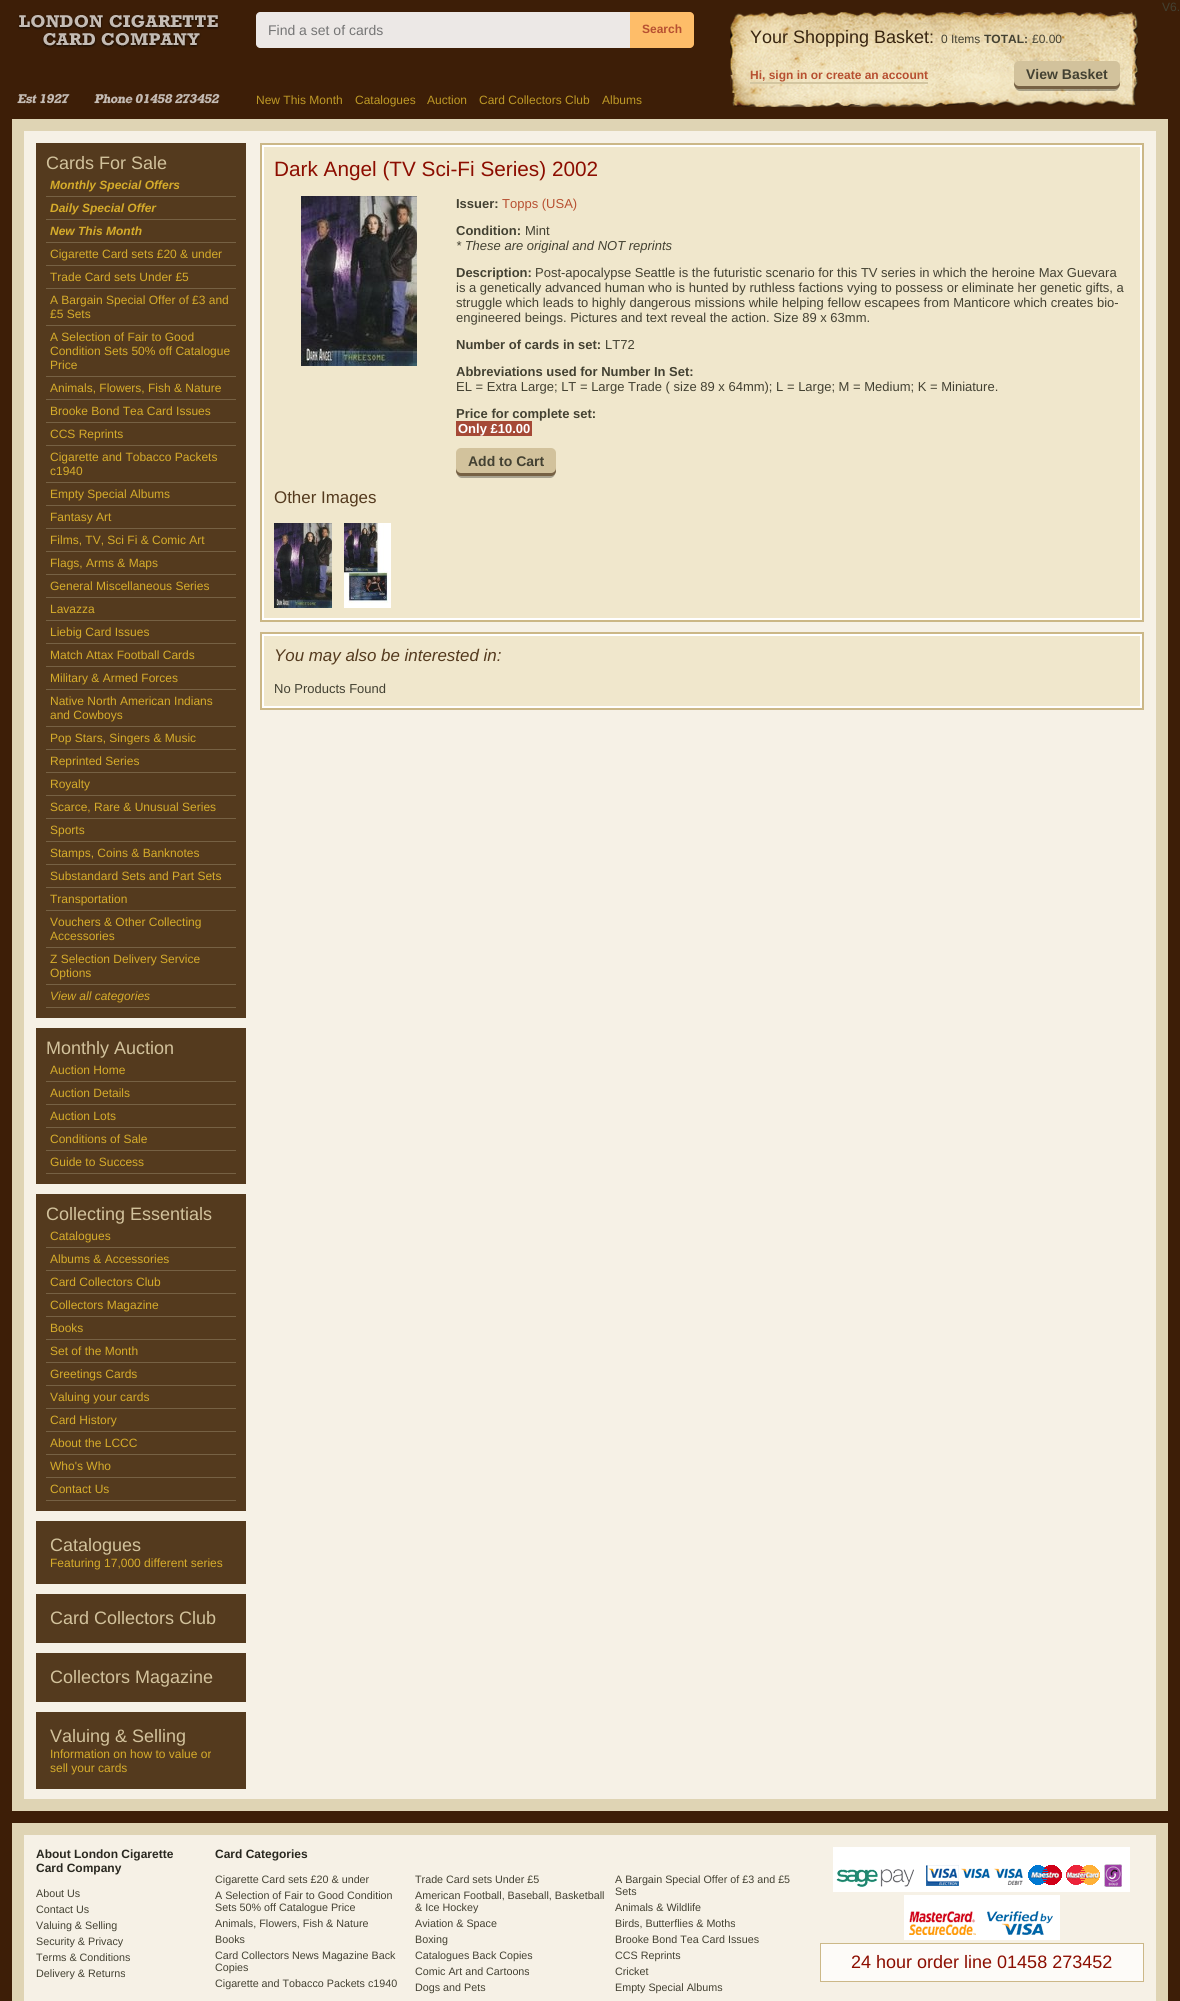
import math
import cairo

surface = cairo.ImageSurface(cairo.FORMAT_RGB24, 1180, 2001)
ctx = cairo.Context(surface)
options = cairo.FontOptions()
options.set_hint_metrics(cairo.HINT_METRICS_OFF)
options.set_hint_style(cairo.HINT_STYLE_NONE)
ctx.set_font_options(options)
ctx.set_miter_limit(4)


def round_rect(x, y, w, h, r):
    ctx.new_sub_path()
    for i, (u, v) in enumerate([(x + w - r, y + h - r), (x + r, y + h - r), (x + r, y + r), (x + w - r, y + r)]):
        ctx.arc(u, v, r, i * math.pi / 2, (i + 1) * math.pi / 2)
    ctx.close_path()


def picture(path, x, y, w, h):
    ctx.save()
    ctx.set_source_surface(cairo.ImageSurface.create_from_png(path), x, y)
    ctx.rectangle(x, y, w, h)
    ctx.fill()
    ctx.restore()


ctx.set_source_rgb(0.239, 0.118, 0.031)
ctx.paint()
ctx.select_font_face("Liberation Sans")
ctx.set_font_size(12)
ctx.set_source_rgb(0.263, 0.255, 0.196)
ctx.move_to(1162, 11)
ctx.show_text("V6.")
picture("img1.png", 17, 14, 203, 90)
ctx.set_source_rgb(0.922, 0.91, 0.902)
ctx.new_path()
ctx.move_to(260, 12)
ctx.line_to(630, 12)
ctx.line_to(630, 48)
ctx.line_to(260, 48)
ctx.curve_to(258, 48, 256, 46, 256, 44)
ctx.line_to(256, 16)
ctx.curve_to(256, 14, 258, 12, 260, 12)
ctx.close_path()
ctx.fill()
ctx.set_font_size(14)
ctx.set_source_rgb(0.459, 0.459, 0.459)
ctx.move_to(268, 35)
ctx.show_text("Find a set of cards")
ctx.set_source_rgb(0.996, 0.741, 0.412)
ctx.new_path()
ctx.move_to(630, 12)
ctx.line_to(690, 12)
ctx.curve_to(692, 12, 694, 14, 694, 16)
ctx.line_to(694, 44)
ctx.curve_to(694, 46, 692, 48, 690, 48)
ctx.line_to(630, 48)
ctx.close_path()
ctx.fill()
ctx.select_font_face("Liberation Sans", cairo.FONT_SLANT_NORMAL, cairo.FONT_WEIGHT_BOLD)
ctx.set_font_size(12)
ctx.set_source_rgb(0.718, 0.314, 0.192)
ctx.move_to(642, 33)
ctx.show_text("Search")
ctx.select_font_face("Liberation Sans")
ctx.set_source_rgb(0.745, 0.6, 0.149)
ctx.move_to(256, 104)
ctx.show_text("New This Month")
ctx.move_to(355, 104)
ctx.show_text("Catalogues")
ctx.move_to(427, 104)
ctx.show_text("Auction")
ctx.move_to(479, 104)
ctx.show_text("Card Collectors Club")
ctx.move_to(602, 104)
ctx.show_text("Albums")
picture("img2.png", 730, 12, 408, 95)
ctx.set_font_size(18)
ctx.set_source_rgb(0.22, 0.145, 0.063)
ctx.move_to(750, 43)
ctx.show_text("Your Shopping Basket:")
ctx.set_font_size(12)
ctx.set_source_rgb(0.263, 0.255, 0.196)
ctx.move_to(941, 43)
ctx.show_text("0 Items")
ctx.select_font_face("Liberation Sans", cairo.FONT_SLANT_NORMAL, cairo.FONT_WEIGHT_BOLD)
ctx.move_to(984, 43)
ctx.show_text("TOTAL:")
ctx.select_font_face("Liberation Sans")
ctx.move_to(1032, 43)
ctx.show_text("£0.00")
ctx.set_source_rgb(0.827, 0.776, 0.631)
ctx.rectangle(750, 82, 178, 2)
ctx.fill()
ctx.select_font_face("Liberation Sans", cairo.FONT_SLANT_NORMAL, cairo.FONT_WEIGHT_BOLD)
ctx.set_source_rgb(0.718, 0.314, 0.192)
ctx.move_to(750, 79)
ctx.show_text("Hi, sign in or create an account")
ctx.set_source_rgba(0, 0, 0, 0.3)
round_rect(1015, 69, 104, 22, 5)
ctx.fill()
ctx.set_source_rgb(0.463, 0.38, 0.267)
round_rect(1014, 64, 106, 25, 5)
ctx.fill()
ctx.set_source_rgb(0.824, 0.761, 0.612)
round_rect(1014, 61, 106, 25, 5)
ctx.fill()
ctx.set_font_size(14)
ctx.set_source_rgb(0.263, 0.255, 0.196)
ctx.move_to(1026, 79)
ctx.show_text("View Basket")
ctx.set_source_rgb(0.875, 0.831, 0.706)
ctx.rectangle(12, 119, 1156, 1692)
ctx.fill()
ctx.set_source_rgb(0.961, 0.945, 0.902)
ctx.rectangle(24, 131, 1132, 1668)
ctx.fill()
ctx.set_source_rgb(0.329, 0.227, 0.118)
ctx.rectangle(36, 143, 210, 875)
ctx.fill()
ctx.select_font_face("Liberation Sans")
ctx.set_font_size(18)
ctx.set_source_rgb(0.824, 0.761, 0.612)
ctx.move_to(46, 169)
ctx.show_text("Cards For Sale")
ctx.set_source_rgb(0.463, 0.38, 0.267)
ctx.rectangle(46, 196, 190, 1)
ctx.fill()
ctx.select_font_face("Liberation Sans", cairo.FONT_SLANT_ITALIC, cairo.FONT_WEIGHT_BOLD)
ctx.set_font_size(12)
ctx.set_source_rgb(0.839, 0.675, 0.169)
ctx.move_to(50, 189)
ctx.show_text("Monthly Special Offers")
ctx.set_source_rgb(0.463, 0.38, 0.267)
ctx.rectangle(46, 219, 190, 1)
ctx.fill()
ctx.set_source_rgb(0.839, 0.675, 0.169)
ctx.move_to(50, 212)
ctx.show_text("Daily Special Offer")
ctx.set_source_rgb(0.463, 0.38, 0.267)
ctx.rectangle(46, 242, 190, 1)
ctx.fill()
ctx.set_source_rgb(0.839, 0.675, 0.169)
ctx.move_to(50, 235)
ctx.show_text("New This Month")
ctx.set_source_rgb(0.463, 0.38, 0.267)
ctx.rectangle(46, 265, 190, 1)
ctx.fill()
ctx.select_font_face("Liberation Sans")
ctx.set_source_rgb(0.839, 0.675, 0.169)
ctx.move_to(50, 258)
ctx.show_text("Cigarette Card sets £20 & under")
ctx.set_source_rgb(0.463, 0.38, 0.267)
ctx.rectangle(46, 288, 190, 1)
ctx.fill()
ctx.set_source_rgb(0.839, 0.675, 0.169)
ctx.move_to(50, 281)
ctx.show_text("Trade Card sets Under £5")
ctx.set_source_rgb(0.463, 0.38, 0.267)
ctx.rectangle(46, 325, 190, 1)
ctx.fill()
ctx.set_source_rgb(0.839, 0.675, 0.169)
ctx.move_to(50, 304)
ctx.show_text("A Bargain Special Offer of £3 and")
ctx.move_to(50, 318)
ctx.show_text("£5 Sets")
ctx.set_source_rgb(0.463, 0.38, 0.267)
ctx.rectangle(46, 376, 190, 1)
ctx.fill()
ctx.set_source_rgb(0.839, 0.675, 0.169)
ctx.move_to(50, 341)
ctx.show_text("A Selection of Fair to Good")
ctx.move_to(50, 355)
ctx.show_text("Condition Sets 50% off Catalogue")
ctx.move_to(50, 369)
ctx.show_text("Price")
ctx.set_source_rgb(0.463, 0.38, 0.267)
ctx.rectangle(46, 399, 190, 1)
ctx.fill()
ctx.set_source_rgb(0.839, 0.675, 0.169)
ctx.move_to(50, 392)
ctx.show_text("Animals, Flowers, Fish & Nature")
ctx.set_source_rgb(0.463, 0.38, 0.267)
ctx.rectangle(46, 422, 190, 1)
ctx.fill()
ctx.set_source_rgb(0.839, 0.675, 0.169)
ctx.move_to(50, 415)
ctx.show_text("Brooke Bond Tea Card Issues")
ctx.set_source_rgb(0.463, 0.38, 0.267)
ctx.rectangle(46, 445, 190, 1)
ctx.fill()
ctx.set_source_rgb(0.839, 0.675, 0.169)
ctx.move_to(50, 438)
ctx.show_text("CCS Reprints")
ctx.set_source_rgb(0.463, 0.38, 0.267)
ctx.rectangle(46, 482, 190, 1)
ctx.fill()
ctx.set_source_rgb(0.839, 0.675, 0.169)
ctx.move_to(50, 461)
ctx.show_text("Cigarette and Tobacco Packets")
ctx.move_to(50, 475)
ctx.show_text("c1940")
ctx.set_source_rgb(0.463, 0.38, 0.267)
ctx.rectangle(46, 505, 190, 1)
ctx.fill()
ctx.set_source_rgb(0.839, 0.675, 0.169)
ctx.move_to(50, 498)
ctx.show_text("Empty Special Albums")
ctx.set_source_rgb(0.463, 0.38, 0.267)
ctx.rectangle(46, 528, 190, 1)
ctx.fill()
ctx.set_source_rgb(0.839, 0.675, 0.169)
ctx.move_to(50, 521)
ctx.show_text("Fantasy Art")
ctx.set_source_rgb(0.463, 0.38, 0.267)
ctx.rectangle(46, 551, 190, 1)
ctx.fill()
ctx.set_source_rgb(0.839, 0.675, 0.169)
ctx.move_to(50, 544)
ctx.show_text("Films, TV, Sci Fi & Comic Art")
ctx.set_source_rgb(0.463, 0.38, 0.267)
ctx.rectangle(46, 574, 190, 1)
ctx.fill()
ctx.set_source_rgb(0.839, 0.675, 0.169)
ctx.move_to(50, 567)
ctx.show_text("Flags, Arms & Maps")
ctx.set_source_rgb(0.463, 0.38, 0.267)
ctx.rectangle(46, 597, 190, 1)
ctx.fill()
ctx.set_source_rgb(0.839, 0.675, 0.169)
ctx.move_to(50, 590)
ctx.show_text("General Miscellaneous Series")
ctx.set_source_rgb(0.463, 0.38, 0.267)
ctx.rectangle(46, 620, 190, 1)
ctx.fill()
ctx.set_source_rgb(0.839, 0.675, 0.169)
ctx.move_to(50, 613)
ctx.show_text("Lavazza")
ctx.set_source_rgb(0.463, 0.38, 0.267)
ctx.rectangle(46, 643, 190, 1)
ctx.fill()
ctx.set_source_rgb(0.839, 0.675, 0.169)
ctx.move_to(50, 636)
ctx.show_text("Liebig Card Issues")
ctx.set_source_rgb(0.463, 0.38, 0.267)
ctx.rectangle(46, 666, 190, 1)
ctx.fill()
ctx.set_source_rgb(0.839, 0.675, 0.169)
ctx.move_to(50, 659)
ctx.show_text("Match Attax Football Cards")
ctx.set_source_rgb(0.463, 0.38, 0.267)
ctx.rectangle(46, 689, 190, 1)
ctx.fill()
ctx.set_source_rgb(0.839, 0.675, 0.169)
ctx.move_to(50, 682)
ctx.show_text("Military & Armed Forces")
ctx.set_source_rgb(0.463, 0.38, 0.267)
ctx.rectangle(46, 726, 190, 1)
ctx.fill()
ctx.set_source_rgb(0.839, 0.675, 0.169)
ctx.move_to(50, 705)
ctx.show_text("Native North American Indians")
ctx.move_to(50, 719)
ctx.show_text("and Cowboys")
ctx.set_source_rgb(0.463, 0.38, 0.267)
ctx.rectangle(46, 749, 190, 1)
ctx.fill()
ctx.set_source_rgb(0.839, 0.675, 0.169)
ctx.move_to(50, 742)
ctx.show_text("Pop Stars, Singers & Music")
ctx.set_source_rgb(0.463, 0.38, 0.267)
ctx.rectangle(46, 772, 190, 1)
ctx.fill()
ctx.set_source_rgb(0.839, 0.675, 0.169)
ctx.move_to(50, 765)
ctx.show_text("Reprinted Series")
ctx.set_source_rgb(0.463, 0.38, 0.267)
ctx.rectangle(46, 795, 190, 1)
ctx.fill()
ctx.set_source_rgb(0.839, 0.675, 0.169)
ctx.move_to(50, 788)
ctx.show_text("Royalty")
ctx.set_source_rgb(0.463, 0.38, 0.267)
ctx.rectangle(46, 818, 190, 1)
ctx.fill()
ctx.set_source_rgb(0.839, 0.675, 0.169)
ctx.move_to(50, 811)
ctx.show_text("Scarce, Rare & Unusual Series")
ctx.set_source_rgb(0.463, 0.38, 0.267)
ctx.rectangle(46, 841, 190, 1)
ctx.fill()
ctx.set_source_rgb(0.839, 0.675, 0.169)
ctx.move_to(50, 834)
ctx.show_text("Sports")
ctx.set_source_rgb(0.463, 0.38, 0.267)
ctx.rectangle(46, 864, 190, 1)
ctx.fill()
ctx.set_source_rgb(0.839, 0.675, 0.169)
ctx.move_to(50, 857)
ctx.show_text("Stamps, Coins & Banknotes")
ctx.set_source_rgb(0.463, 0.38, 0.267)
ctx.rectangle(46, 887, 190, 1)
ctx.fill()
ctx.set_source_rgb(0.839, 0.675, 0.169)
ctx.move_to(50, 880)
ctx.show_text("Substandard Sets and Part Sets")
ctx.set_source_rgb(0.463, 0.38, 0.267)
ctx.rectangle(46, 910, 190, 1)
ctx.fill()
ctx.set_source_rgb(0.839, 0.675, 0.169)
ctx.move_to(50, 903)
ctx.show_text("Transportation")
ctx.set_source_rgb(0.463, 0.38, 0.267)
ctx.rectangle(46, 947, 190, 1)
ctx.fill()
ctx.set_source_rgb(0.839, 0.675, 0.169)
ctx.move_to(50, 926)
ctx.show_text("Vouchers & Other Collecting")
ctx.move_to(50, 940)
ctx.show_text("Accessories")
ctx.set_source_rgb(0.463, 0.38, 0.267)
ctx.rectangle(46, 984, 190, 1)
ctx.fill()
ctx.set_source_rgb(0.839, 0.675, 0.169)
ctx.move_to(50, 963)
ctx.show_text("Z Selection Delivery Service")
ctx.move_to(50, 977)
ctx.show_text("Options")
ctx.set_source_rgb(0.463, 0.38, 0.267)
ctx.rectangle(46, 1007, 190, 1)
ctx.fill()
ctx.select_font_face("Liberation Sans", cairo.FONT_SLANT_ITALIC)
ctx.set_source_rgb(0.839, 0.675, 0.169)
ctx.move_to(50, 1000)
ctx.show_text("View all categories")
ctx.set_source_rgb(0.329, 0.227, 0.118)
ctx.rectangle(36, 1028, 210, 156)
ctx.fill()
ctx.select_font_face("Liberation Sans")
ctx.set_font_size(18)
ctx.set_source_rgb(0.824, 0.761, 0.612)
ctx.move_to(46, 1054)
ctx.show_text("Monthly Auction")
ctx.set_source_rgb(0.463, 0.38, 0.267)
ctx.rectangle(46, 1081, 190, 1)
ctx.fill()
ctx.set_font_size(12)
ctx.set_source_rgb(0.839, 0.675, 0.169)
ctx.move_to(50, 1074)
ctx.show_text("Auction Home")
ctx.set_source_rgb(0.463, 0.38, 0.267)
ctx.rectangle(46, 1104, 190, 1)
ctx.fill()
ctx.set_source_rgb(0.839, 0.675, 0.169)
ctx.move_to(50, 1097)
ctx.show_text("Auction Details")
ctx.set_source_rgb(0.463, 0.38, 0.267)
ctx.rectangle(46, 1127, 190, 1)
ctx.fill()
ctx.set_source_rgb(0.839, 0.675, 0.169)
ctx.move_to(50, 1120)
ctx.show_text("Auction Lots")
ctx.set_source_rgb(0.463, 0.38, 0.267)
ctx.rectangle(46, 1150, 190, 1)
ctx.fill()
ctx.set_source_rgb(0.839, 0.675, 0.169)
ctx.move_to(50, 1143)
ctx.show_text("Conditions of Sale")
ctx.set_source_rgb(0.463, 0.38, 0.267)
ctx.rectangle(46, 1173, 190, 1)
ctx.fill()
ctx.set_source_rgb(0.839, 0.675, 0.169)
ctx.move_to(50, 1166)
ctx.show_text("Guide to Success")
ctx.set_source_rgb(0.329, 0.227, 0.118)
ctx.rectangle(36, 1194, 210, 317)
ctx.fill()
ctx.set_font_size(18)
ctx.set_source_rgb(0.824, 0.761, 0.612)
ctx.move_to(46, 1220)
ctx.show_text("Collecting Essentials")
ctx.set_source_rgb(0.463, 0.38, 0.267)
ctx.rectangle(46, 1247, 190, 1)
ctx.fill()
ctx.set_font_size(12)
ctx.set_source_rgb(0.839, 0.675, 0.169)
ctx.move_to(50, 1240)
ctx.show_text("Catalogues")
ctx.set_source_rgb(0.463, 0.38, 0.267)
ctx.rectangle(46, 1270, 190, 1)
ctx.fill()
ctx.set_source_rgb(0.839, 0.675, 0.169)
ctx.move_to(50, 1263)
ctx.show_text("Albums & Accessories")
ctx.set_source_rgb(0.463, 0.38, 0.267)
ctx.rectangle(46, 1293, 190, 1)
ctx.fill()
ctx.set_source_rgb(0.839, 0.675, 0.169)
ctx.move_to(50, 1286)
ctx.show_text("Card Collectors Club")
ctx.set_source_rgb(0.463, 0.38, 0.267)
ctx.rectangle(46, 1316, 190, 1)
ctx.fill()
ctx.set_source_rgb(0.839, 0.675, 0.169)
ctx.move_to(50, 1309)
ctx.show_text("Collectors Magazine")
ctx.set_source_rgb(0.463, 0.38, 0.267)
ctx.rectangle(46, 1339, 190, 1)
ctx.fill()
ctx.set_source_rgb(0.839, 0.675, 0.169)
ctx.move_to(50, 1332)
ctx.show_text("Books")
ctx.set_source_rgb(0.463, 0.38, 0.267)
ctx.rectangle(46, 1362, 190, 1)
ctx.fill()
ctx.set_source_rgb(0.839, 0.675, 0.169)
ctx.move_to(50, 1355)
ctx.show_text("Set of the Month")
ctx.set_source_rgb(0.463, 0.38, 0.267)
ctx.rectangle(46, 1385, 190, 1)
ctx.fill()
ctx.set_source_rgb(0.839, 0.675, 0.169)
ctx.move_to(50, 1378)
ctx.show_text("Greetings Cards")
ctx.set_source_rgb(0.463, 0.38, 0.267)
ctx.rectangle(46, 1408, 190, 1)
ctx.fill()
ctx.set_source_rgb(0.839, 0.675, 0.169)
ctx.move_to(50, 1401)
ctx.show_text("Valuing your cards")
ctx.set_source_rgb(0.463, 0.38, 0.267)
ctx.rectangle(46, 1431, 190, 1)
ctx.fill()
ctx.set_source_rgb(0.839, 0.675, 0.169)
ctx.move_to(50, 1424)
ctx.show_text("Card History")
ctx.set_source_rgb(0.463, 0.38, 0.267)
ctx.rectangle(46, 1454, 190, 1)
ctx.fill()
ctx.set_source_rgb(0.839, 0.675, 0.169)
ctx.move_to(50, 1447)
ctx.show_text("About the LCCC")
ctx.set_source_rgb(0.463, 0.38, 0.267)
ctx.rectangle(46, 1477, 190, 1)
ctx.fill()
ctx.set_source_rgb(0.839, 0.675, 0.169)
ctx.move_to(50, 1470)
ctx.show_text("Who's Who")
ctx.set_source_rgb(0.463, 0.38, 0.267)
ctx.rectangle(46, 1500, 190, 1)
ctx.fill()
ctx.set_source_rgb(0.839, 0.675, 0.169)
ctx.move_to(50, 1493)
ctx.show_text("Contact Us")
ctx.set_source_rgb(0.329, 0.227, 0.118)
ctx.rectangle(36, 1521, 210, 63)
ctx.fill()
ctx.set_font_size(18)
ctx.set_source_rgb(0.824, 0.761, 0.612)
ctx.move_to(50, 1551)
ctx.show_text("Catalogues")
ctx.set_font_size(12)
ctx.set_source_rgb(0.839, 0.675, 0.169)
ctx.move_to(50, 1567)
ctx.show_text("Featuring 17,000 different series")
ctx.set_source_rgb(0.329, 0.227, 0.118)
ctx.rectangle(36, 1594, 210, 49)
ctx.fill()
ctx.set_font_size(18)
ctx.set_source_rgb(0.824, 0.761, 0.612)
ctx.move_to(50, 1624)
ctx.show_text("Card Collectors Club")
ctx.set_source_rgb(0.329, 0.227, 0.118)
ctx.rectangle(36, 1653, 210, 49)
ctx.fill()
ctx.set_source_rgb(0.824, 0.761, 0.612)
ctx.move_to(50, 1683)
ctx.show_text("Collectors Magazine")
ctx.set_source_rgb(0.329, 0.227, 0.118)
ctx.rectangle(36, 1712, 210, 77)
ctx.fill()
ctx.set_source_rgb(0.824, 0.761, 0.612)
ctx.move_to(50, 1742)
ctx.show_text("Valuing & Selling")
ctx.set_font_size(12)
ctx.set_source_rgb(0.839, 0.675, 0.169)
ctx.move_to(50, 1758)
ctx.show_text("Information on how to value or")
ctx.move_to(50, 1772)
ctx.show_text("sell your cards")
ctx.set_source_rgb(0.941, 0.906, 0.8)
ctx.rectangle(264, 147, 876, 471)
ctx.fill()
ctx.rectangle(261, 144, 882, 477)
ctx.set_source_rgb(0.796, 0.718, 0.529)
ctx.stroke()
ctx.rectangle(263, 146, 878, 473)
ctx.set_source_rgb(1, 1, 1)
ctx.stroke()
ctx.set_font_size(20.75)
ctx.set_source_rgb(0.549, 0.051, 0)
ctx.move_to(274, 176)
ctx.show_text("Dark Angel (TV Sci-Fi Series) 2002")
picture("img3.png", 301, 196, 116, 170)
ctx.select_font_face("Liberation Sans", cairo.FONT_SLANT_NORMAL, cairo.FONT_WEIGHT_BOLD)
ctx.set_font_size(13)
ctx.set_source_rgb(0.263, 0.255, 0.196)
ctx.move_to(456, 208)
ctx.show_text("Issuer:")
ctx.select_font_face("Liberation Sans")
ctx.set_source_rgb(0.718, 0.314, 0.192)
ctx.move_to(502, 208)
ctx.show_text("Topps (USA)")
ctx.select_font_face("Liberation Sans", cairo.FONT_SLANT_NORMAL, cairo.FONT_WEIGHT_BOLD)
ctx.set_source_rgb(0.263, 0.255, 0.196)
ctx.move_to(456, 235)
ctx.show_text("Condition:")
ctx.select_font_face("Liberation Sans")
ctx.move_to(525, 235)
ctx.show_text("Mint")
ctx.select_font_face("Liberation Sans", cairo.FONT_SLANT_ITALIC)
ctx.move_to(456, 250)
ctx.show_text("* These are original and NOT reprints")
ctx.select_font_face("Liberation Sans", cairo.FONT_SLANT_NORMAL, cairo.FONT_WEIGHT_BOLD)
ctx.move_to(456, 277)
ctx.show_text("Description:")
ctx.select_font_face("Liberation Sans")
ctx.move_to(535, 277)
ctx.show_text("Post-apocalypse Seattle is the futuristic scenario for this TV series in which the heroine Max Guevara")
ctx.move_to(456, 292)
ctx.show_text("is a genetically advanced human who is hunted by ruthless factions vying to possess or eliminate her genetic gifts, a")
ctx.move_to(456, 307)
ctx.show_text("struggle which leads to highly dangerous missions while helping fellow escapees from Manticore which creates bio-")
ctx.move_to(456, 322)
ctx.show_text("engineered beings. Pictures and text reveal the action. Size 89 x 63mm.")
ctx.select_font_face("Liberation Sans", cairo.FONT_SLANT_NORMAL, cairo.FONT_WEIGHT_BOLD)
ctx.move_to(456, 349)
ctx.show_text("Number of cards in set:")
ctx.select_font_face("Liberation Sans")
ctx.move_to(605, 349)
ctx.show_text("LT72")
ctx.select_font_face("Liberation Sans", cairo.FONT_SLANT_NORMAL, cairo.FONT_WEIGHT_BOLD)
ctx.move_to(456, 376)
ctx.show_text("Abbreviations used for Number In Set:")
ctx.select_font_face("Liberation Sans")
ctx.move_to(456, 391)
ctx.show_text("EL = Extra Large; LT = Large Trade ( size 89 x 64mm); L = Large; M = Medium; K = Miniature.")
ctx.select_font_face("Liberation Sans", cairo.FONT_SLANT_NORMAL, cairo.FONT_WEIGHT_BOLD)
ctx.move_to(456, 418)
ctx.show_text("Price for complete set:")
ctx.set_source_rgb(0.647, 0.286, 0.212)
ctx.rectangle(456, 421, 76, 15)
ctx.fill()
ctx.set_source_rgb(1, 1, 1)
ctx.move_to(458, 433)
ctx.show_text("Only £10.00")
ctx.set_source_rgb(0.659, 0.635, 0.561)
round_rect(457, 456, 98, 22, 5)
ctx.fill()
ctx.set_source_rgb(0.463, 0.38, 0.267)
round_rect(456, 451, 100, 25, 5)
ctx.fill()
ctx.set_source_rgb(0.824, 0.761, 0.612)
round_rect(456, 448, 100, 25, 5)
ctx.fill()
ctx.set_font_size(14)
ctx.set_source_rgb(0.263, 0.255, 0.196)
ctx.move_to(468, 466)
ctx.show_text("Add to Cart")
ctx.select_font_face("Liberation Sans")
ctx.set_font_size(16.9)
ctx.set_source_rgb(0.329, 0.227, 0.118)
ctx.move_to(274, 503)
ctx.show_text("Other Images")
picture("img4.png", 274, 523, 58, 85)
picture("img5.png", 344, 523, 47, 85)
ctx.set_source_rgb(0.941, 0.906, 0.8)
ctx.rectangle(264, 636, 876, 70)
ctx.fill()
ctx.rectangle(261, 633, 882, 76)
ctx.set_source_rgb(0.796, 0.718, 0.529)
ctx.stroke()
ctx.rectangle(263, 635, 878, 72)
ctx.set_source_rgb(1, 1, 1)
ctx.stroke()
ctx.select_font_face("Liberation Sans", cairo.FONT_SLANT_ITALIC)
ctx.set_source_rgb(0.329, 0.227, 0.118)
ctx.move_to(274, 661)
ctx.show_text("You may also be interested in:")
ctx.select_font_face("Liberation Sans")
ctx.set_font_size(13)
ctx.set_source_rgb(0.263, 0.255, 0.196)
ctx.move_to(274, 693)
ctx.show_text("No Products Found")
ctx.set_source_rgb(0.875, 0.831, 0.706)
ctx.rectangle(12, 1823, 1156, 178)
ctx.fill()
ctx.set_source_rgb(0.961, 0.945, 0.902)
ctx.rectangle(24, 1835, 1132, 166)
ctx.fill()
ctx.select_font_face("Liberation Sans", cairo.FONT_SLANT_NORMAL, cairo.FONT_WEIGHT_BOLD)
ctx.set_font_size(12)
ctx.set_source_rgb(0.161, 0.157, 0.125)
ctx.move_to(36, 1858)
ctx.show_text("About London Cigarette")
ctx.move_to(36, 1872)
ctx.show_text("Card Company")
ctx.select_font_face("Liberation Sans")
ctx.set_font_size(10.75)
ctx.set_source_rgb(0.263, 0.255, 0.196)
ctx.move_to(36, 1897)
ctx.show_text("About Us")
ctx.move_to(36, 1913)
ctx.show_text("Contact Us")
ctx.move_to(36, 1929)
ctx.show_text("Valuing & Selling")
ctx.move_to(36, 1945)
ctx.show_text("Security & Privacy")
ctx.move_to(36, 1961)
ctx.show_text("Terms & Conditions")
ctx.move_to(36, 1977)
ctx.show_text("Delivery & Returns")
ctx.select_font_face("Liberation Sans", cairo.FONT_SLANT_NORMAL, cairo.FONT_WEIGHT_BOLD)
ctx.set_font_size(12)
ctx.set_source_rgb(0.161, 0.157, 0.125)
ctx.move_to(215, 1858)
ctx.show_text("Card Categories")
ctx.select_font_face("Liberation Sans")
ctx.set_font_size(10.75)
ctx.set_source_rgb(0.263, 0.255, 0.196)
ctx.move_to(215, 1883)
ctx.show_text("Cigarette Card sets £20 & under")
ctx.move_to(215, 1899)
ctx.show_text("A Selection of Fair to Good Condition")
ctx.move_to(215, 1911)
ctx.show_text("Sets 50% off Catalogue Price")
ctx.move_to(215, 1927)
ctx.show_text("Animals, Flowers, Fish & Nature")
ctx.move_to(215, 1943)
ctx.show_text("Books")
ctx.move_to(215, 1959)
ctx.show_text("Card Collectors News Magazine Back")
ctx.move_to(215, 1971)
ctx.show_text("Copies")
ctx.move_to(215, 1987)
ctx.show_text("Cigarette and Tobacco Packets c1940")
ctx.move_to(415, 1883)
ctx.show_text("Trade Card sets Under £5")
ctx.move_to(415, 1899)
ctx.show_text("American Football, Baseball, Basketball")
ctx.move_to(415, 1911)
ctx.show_text("& Ice Hockey")
ctx.move_to(415, 1927)
ctx.show_text("Aviation & Space")
ctx.move_to(415, 1943)
ctx.show_text("Boxing")
ctx.move_to(415, 1959)
ctx.show_text("Catalogues Back Copies")
ctx.move_to(415, 1975)
ctx.show_text("Comic Art and Cartoons")
ctx.move_to(415, 1991)
ctx.show_text("Dogs and Pets")
ctx.move_to(615, 1883)
ctx.show_text("A Bargain Special Offer of £3 and £5")
ctx.move_to(615, 1895)
ctx.show_text("Sets")
ctx.move_to(615, 1911)
ctx.show_text("Animals & Wildlife")
ctx.move_to(615, 1927)
ctx.show_text("Birds, Butterflies & Moths")
ctx.move_to(615, 1943)
ctx.show_text("Brooke Bond Tea Card Issues")
ctx.move_to(615, 1959)
ctx.show_text("CCS Reprints")
ctx.move_to(615, 1975)
ctx.show_text("Cricket")
ctx.move_to(615, 1991)
ctx.show_text("Empty Special Albums")
picture("img6.png", 833, 1847, 297, 45)
picture("img7.png", 904, 1895, 156, 45)
ctx.set_source_rgb(0.992, 0.984, 0.969)
ctx.rectangle(820.5, 1943.5, 323, 38)
ctx.fill_preserve()
ctx.set_source_rgb(0.8, 0.722, 0.533)
ctx.set_line_width(1)
ctx.stroke()
ctx.set_font_size(18)
ctx.set_source_rgb(0.549, 0.051, 0)
ctx.move_to(851, 1968)
ctx.show_text("24 hour order line 01458 273452")
surface.write_to_png("page.png")
